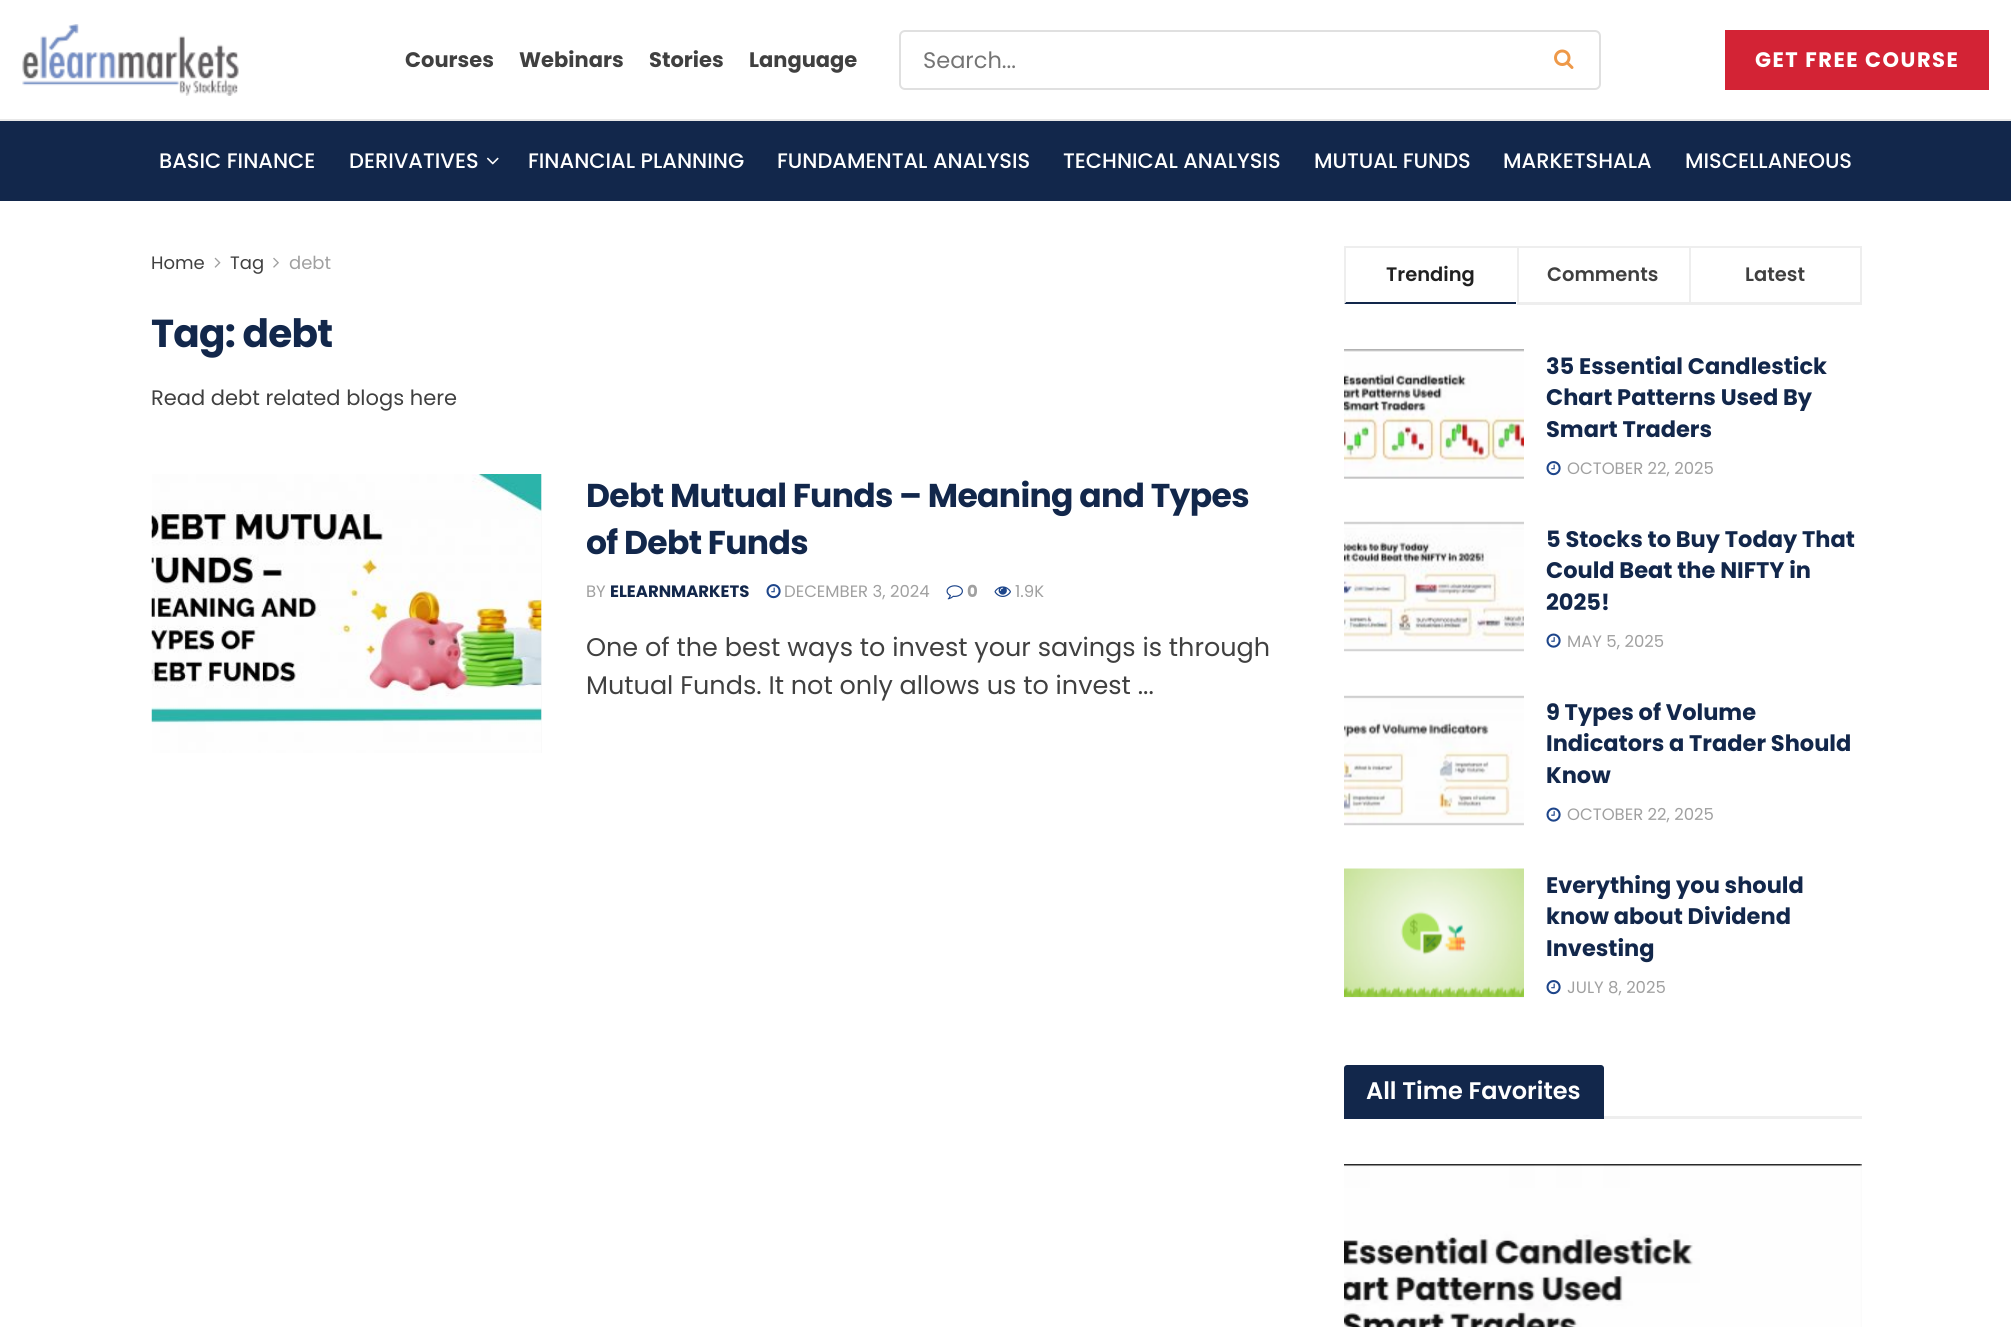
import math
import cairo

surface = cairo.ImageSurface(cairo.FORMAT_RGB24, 2011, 1327)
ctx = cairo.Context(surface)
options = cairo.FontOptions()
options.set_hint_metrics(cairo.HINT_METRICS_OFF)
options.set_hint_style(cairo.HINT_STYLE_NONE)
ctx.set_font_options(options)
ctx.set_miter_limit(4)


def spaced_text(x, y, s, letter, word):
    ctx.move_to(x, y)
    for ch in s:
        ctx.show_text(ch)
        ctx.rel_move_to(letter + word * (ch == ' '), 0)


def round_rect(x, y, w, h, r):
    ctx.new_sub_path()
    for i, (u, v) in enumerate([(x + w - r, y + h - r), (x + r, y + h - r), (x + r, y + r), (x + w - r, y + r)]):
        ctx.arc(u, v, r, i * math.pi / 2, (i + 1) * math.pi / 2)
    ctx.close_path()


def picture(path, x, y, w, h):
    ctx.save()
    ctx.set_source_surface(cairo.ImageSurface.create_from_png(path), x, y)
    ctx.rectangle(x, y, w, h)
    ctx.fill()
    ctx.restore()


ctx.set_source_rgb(1, 1, 1)
ctx.paint()
ctx.set_source_rgb(0.91, 0.91, 0.91)
ctx.rectangle(0, 119, 2011, 2)
ctx.fill()
picture("img1.png", 22, 24, 217, 72)
ctx.select_font_face("Poppins", cairo.FONT_SLANT_NORMAL, cairo.FONT_WEIGHT_BOLD)
ctx.set_font_size(21)
ctx.set_source_rgb(0.251, 0.251, 0.251)
ctx.move_to(405, 67)
ctx.show_text("Courses")
ctx.move_to(519, 67)
ctx.show_text("Webinars")
ctx.move_to(649, 67)
ctx.show_text("Stories")
ctx.move_to(749, 67)
ctx.show_text("Language")
round_rect(900, 31, 700, 58, 5)
ctx.set_source_rgb(0.878, 0.878, 0.878)
ctx.stroke()
ctx.select_font_face("Poppins")
ctx.set_font_size(22.5)
ctx.set_source_rgb(0.459, 0.459, 0.459)
ctx.move_to(923, 68)
ctx.show_text("Search...")
picture("img2.png", 1554, 49, 20, 20)
ctx.set_source_rgb(0.827, 0.137, 0.208)
ctx.rectangle(1725, 30, 264, 60)
ctx.fill()
ctx.select_font_face("Poppins", cairo.FONT_SLANT_NORMAL, cairo.FONT_WEIGHT_BOLD)
ctx.set_font_size(21)
ctx.set_source_rgb(1, 1, 1)
spaced_text(1755, 67, "GET FREE COURSE", 1.5, 0)
ctx.set_source_rgb(0.071, 0.153, 0.294)
ctx.rectangle(0, 121, 2011, 80)
ctx.fill()
ctx.select_font_face("Poppins Medium")
ctx.set_source_rgb(1, 1, 1)
ctx.move_to(159, 168)
ctx.show_text("BASIC FINANCE")
ctx.move_to(349, 168)
ctx.show_text("DERIVATIVES")
picture("img3.png", 486, 157, 13, 8)
ctx.move_to(528, 168)
ctx.show_text("FINANCIAL PLANNING")
ctx.move_to(777, 168)
ctx.show_text("FUNDAMENTAL ANALYSIS")
ctx.move_to(1063, 168)
ctx.show_text("TECHNICAL ANALYSIS")
ctx.move_to(1314, 168)
ctx.show_text("MUTUAL FUNDS")
ctx.move_to(1503, 168)
ctx.show_text("MARKETSHALA")
ctx.move_to(1685, 168)
ctx.show_text("MISCELLANEOUS")
ctx.select_font_face("Poppins")
ctx.set_font_size(18)
ctx.set_source_rgb(0.251, 0.251, 0.251)
ctx.move_to(151, 269)
ctx.show_text("Home")
picture("img4.png", 214, 257, 7, 11)
ctx.move_to(230, 269)
ctx.show_text("Tag")
picture("img5.png", 273, 257, 6, 11)
ctx.set_source_rgb(0.627, 0.627, 0.627)
ctx.move_to(289, 269)
ctx.show_text("debt")
ctx.select_font_face("Poppins", cairo.FONT_SLANT_NORMAL, cairo.FONT_WEIGHT_BOLD)
ctx.set_font_size(39)
ctx.set_source_rgb(0.071, 0.153, 0.294)
spaced_text(151, 347, "Tag: debt", -0.75, 0)
ctx.select_font_face("Poppins")
ctx.set_font_size(21)
ctx.set_source_rgb(0.251, 0.251, 0.251)
ctx.move_to(151, 405)
ctx.show_text("Read debt related blogs here")
ctx.set_source_rgb(0.969, 0.969, 0.969)
ctx.rectangle(541, 474, 1, 279)
ctx.fill()
picture("img6.png", 151, 474, 391, 279)
ctx.select_font_face("Poppins", cairo.FONT_SLANT_NORMAL, cairo.FONT_WEIGHT_BOLD)
ctx.set_font_size(33)
ctx.set_source_rgb(0.071, 0.153, 0.294)
spaced_text(586, 507, "Debt Mutual Funds – Meaning and Types", -0.65, 0)
ctx.save()
ctx.rectangle(587, 474, 690, 231)
ctx.clip()
spaced_text(586, 554, "of Debt Funds", -0.65, 0)
ctx.restore()
ctx.select_font_face("Poppins")
ctx.set_font_size(16.5)
ctx.set_source_rgb(0.627, 0.627, 0.627)
ctx.move_to(586, 597)
ctx.show_text("BY")
ctx.select_font_face("Poppins", cairo.FONT_SLANT_NORMAL, cairo.FONT_WEIGHT_BOLD)
ctx.set_source_rgb(0.071, 0.153, 0.294)
ctx.move_to(610, 597)
ctx.show_text("ELEARNMARKETS")
picture("img7.png", 766, 584, 15, 15)
ctx.select_font_face("Poppins")
ctx.set_source_rgb(0.627, 0.627, 0.627)
ctx.move_to(784, 597)
ctx.show_text("DECEMBER 3, 2024")
picture("img8.png", 946, 585, 17, 15)
ctx.select_font_face("Poppins", cairo.FONT_SLANT_NORMAL, cairo.FONT_WEIGHT_BOLD)
ctx.move_to(967, 597)
ctx.show_text("0")
picture("img9.png", 994, 586, 17, 11)
ctx.select_font_face("Poppins")
ctx.move_to(1015, 597)
ctx.show_text("1.9K")
ctx.set_font_size(25.5)
ctx.set_source_rgb(0.251, 0.251, 0.251)
ctx.move_to(586, 656)
ctx.show_text("One of the best ways to invest your savings is through")
ctx.move_to(586, 694)
ctx.show_text("Mutual Funds. It not only allows us to invest ...")
ctx.set_source_rgb(0.933, 0.933, 0.933)
ctx.rectangle(1344, 246, 518, 2)
ctx.fill()
ctx.set_source_rgb(0.071, 0.153, 0.294)
ctx.new_path()
ctx.move_to(1516, 304)
ctx.line_to(1344, 304)
ctx.line_to(1346, 302)
ctx.line_to(1516, 302)
ctx.close_path()
ctx.fill()
ctx.set_source_rgb(0.933, 0.933, 0.933)
ctx.new_path()
ctx.move_to(1344, 304)
ctx.line_to(1344, 246)
ctx.line_to(1346, 248)
ctx.line_to(1346, 302)
ctx.close_path()
ctx.fill()
ctx.select_font_face("Poppins SemiBold")
ctx.set_font_size(19.5)
ctx.set_source_rgb(0.129, 0.129, 0.129)
ctx.move_to(1386, 281)
ctx.show_text("Trending")
ctx.set_source_rgb(0.933, 0.933, 0.933)
ctx.rectangle(1517, 302, 172, 3)
ctx.fill()
ctx.rectangle(1517, 246, 2, 59)
ctx.fill()
ctx.set_source_rgb(0.251, 0.251, 0.251)
ctx.move_to(1547, 281)
ctx.show_text("Comments")
ctx.set_source_rgb(0.933, 0.933, 0.933)
ctx.rectangle(1860, 246, 2, 59)
ctx.fill()
ctx.rectangle(1689, 302, 173, 3)
ctx.fill()
ctx.rectangle(1689, 246, 2, 59)
ctx.fill()
ctx.set_source_rgb(0.251, 0.251, 0.251)
ctx.move_to(1745, 281)
ctx.show_text("Latest")
ctx.set_source_rgb(0.969, 0.969, 0.969)
ctx.rectangle(1344, 478, 180, 1)
ctx.fill()
picture("img10.png", 1344, 349, 180, 130)
ctx.select_font_face("Poppins", cairo.FONT_SLANT_NORMAL, cairo.FONT_WEIGHT_BOLD)
ctx.set_font_size(22.5)
ctx.set_source_rgb(0.071, 0.153, 0.294)
ctx.move_to(1546, 374)
ctx.show_text("35 Essential Candlestick")
ctx.move_to(1546, 405)
ctx.show_text("Chart Patterns Used By")
ctx.move_to(1546, 437)
ctx.show_text("Smart Traders")
picture("img7.png", 1546, 461, 15, 15)
ctx.select_font_face("Poppins")
ctx.set_font_size(16.5)
ctx.set_source_rgb(0.627, 0.627, 0.627)
ctx.move_to(1567, 474)
ctx.show_text("OCTOBER 22, 2025")
ctx.set_source_rgb(0.969, 0.969, 0.969)
ctx.rectangle(1344, 522, 180, 129)
ctx.fill()
picture("img11.png", 1344, 521, 180, 131)
ctx.select_font_face("Poppins", cairo.FONT_SLANT_NORMAL, cairo.FONT_WEIGHT_BOLD)
ctx.set_font_size(22.5)
ctx.set_source_rgb(0.071, 0.153, 0.294)
ctx.move_to(1546, 547)
ctx.show_text("5 Stocks to Buy Today That")
ctx.move_to(1546, 578)
ctx.show_text("Could Beat the NIFTY in")
ctx.move_to(1546, 610)
ctx.show_text("2025!")
picture("img12.png", 1546, 633, 15, 15)
ctx.select_font_face("Poppins")
ctx.set_font_size(16.5)
ctx.set_source_rgb(0.627, 0.627, 0.627)
ctx.move_to(1567, 647)
ctx.show_text("MAY 5, 2025")
ctx.set_source_rgb(0.969, 0.969, 0.969)
ctx.rectangle(1344, 696, 180, 129)
ctx.fill()
picture("img13.png", 1344, 695, 180, 131)
ctx.select_font_face("Poppins", cairo.FONT_SLANT_NORMAL, cairo.FONT_WEIGHT_BOLD)
ctx.set_font_size(22.5)
ctx.set_source_rgb(0.071, 0.153, 0.294)
ctx.move_to(1546, 720)
ctx.show_text("9 Types of Volume")
ctx.move_to(1546, 751)
ctx.show_text("Indicators a Trader Should")
ctx.move_to(1546, 783)
ctx.show_text("Know")
picture("img12.png", 1546, 807, 15, 15)
ctx.select_font_face("Poppins")
ctx.set_font_size(16.5)
ctx.set_source_rgb(0.627, 0.627, 0.627)
ctx.move_to(1567, 820)
ctx.show_text("OCTOBER 22, 2025")
ctx.set_source_rgb(0.969, 0.969, 0.969)
ctx.rectangle(1344, 997, 180, 1)
ctx.fill()
picture("img14.png", 1344, 868, 180, 129)
ctx.select_font_face("Poppins", cairo.FONT_SLANT_NORMAL, cairo.FONT_WEIGHT_BOLD)
ctx.set_font_size(22.5)
ctx.set_source_rgb(0.071, 0.153, 0.294)
ctx.move_to(1546, 893)
ctx.show_text("Everything you should")
ctx.move_to(1546, 924)
ctx.show_text("know about Dividend")
ctx.move_to(1546, 956)
ctx.show_text("Investing")
picture("img7.png", 1546, 980, 15, 15)
ctx.select_font_face("Poppins")
ctx.set_font_size(16.5)
ctx.set_source_rgb(0.627, 0.627, 0.627)
ctx.move_to(1567, 993)
ctx.show_text("JULY 8, 2025")
ctx.set_source_rgb(0.933, 0.933, 0.933)
ctx.rectangle(1604, 1116, 258, 3)
ctx.fill()
ctx.set_source_rgb(0.071, 0.153, 0.294)
ctx.new_path()
ctx.move_to(1347, 1065)
ctx.line_to(1601, 1065)
ctx.curve_to(1602.5, 1065, 1604, 1066.5, 1604, 1068)
ctx.line_to(1604, 1119)
ctx.line_to(1344, 1119)
ctx.line_to(1344, 1068)
ctx.curve_to(1344, 1066.5, 1345.5, 1065, 1347, 1065)
ctx.close_path()
ctx.fill()
ctx.select_font_face("Poppins SemiBold")
ctx.set_font_size(24)
ctx.set_source_rgb(1, 1, 1)
ctx.move_to(1366, 1099)
ctx.show_text("All Time Favorites")
ctx.set_source_rgb(0.969, 0.969, 0.969)
ctx.rectangle(1860, 1164, 2, 163)
ctx.fill()
picture("img15.png", 1344, 1164, 518, 163)
surface.write_to_png("page.png")
